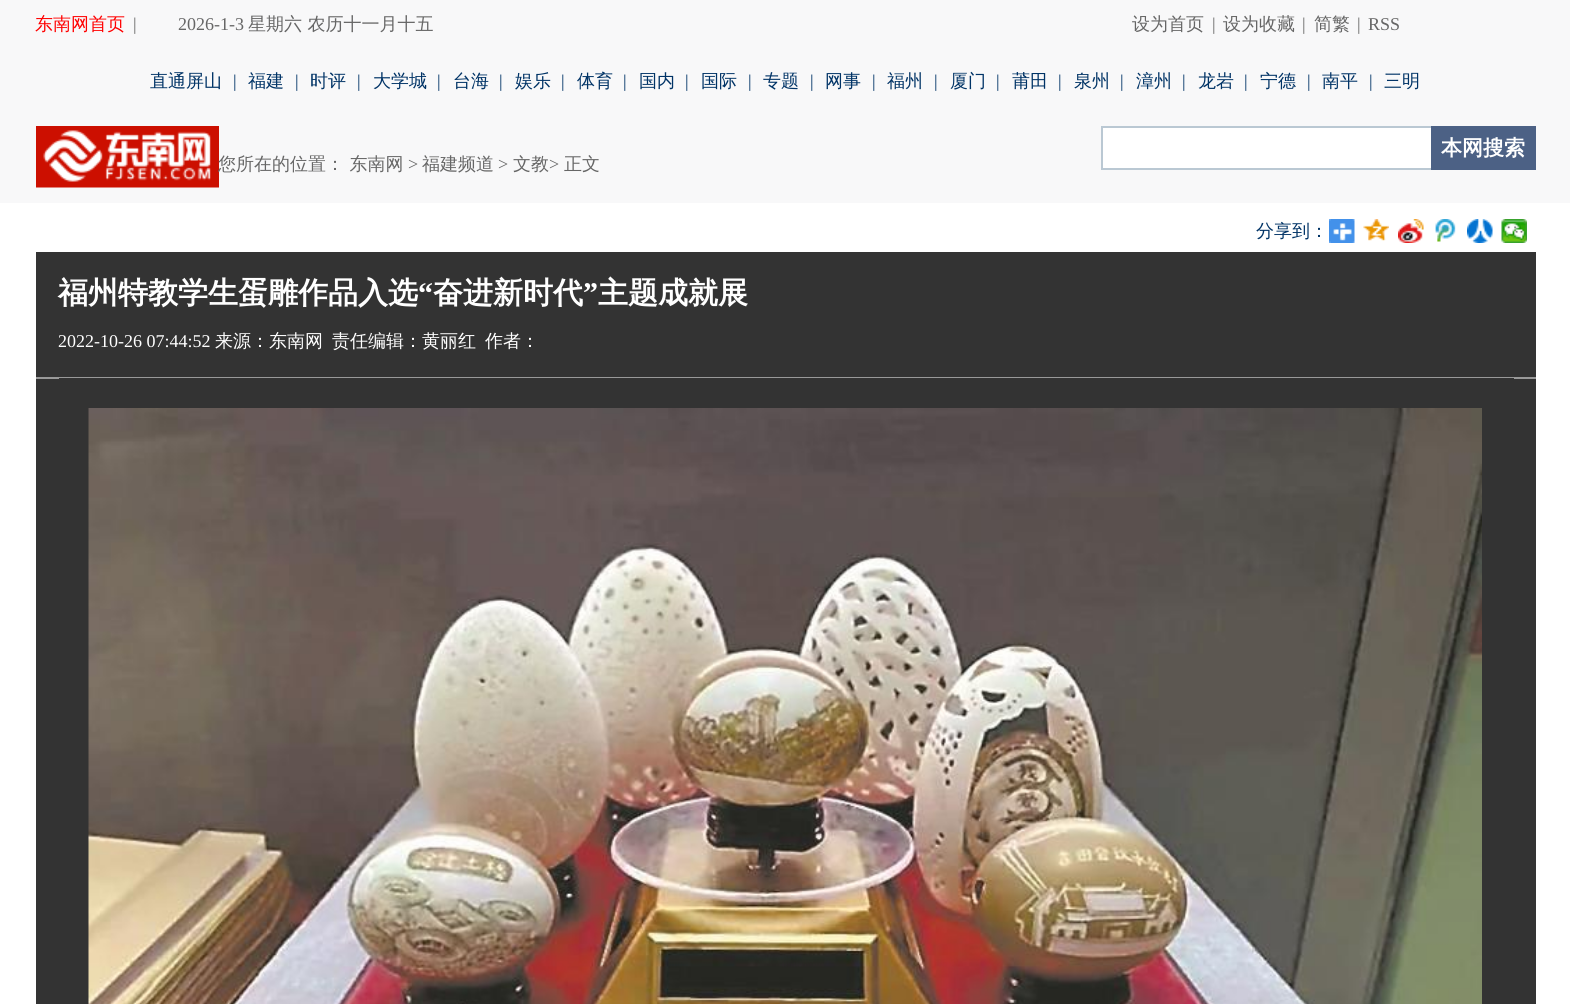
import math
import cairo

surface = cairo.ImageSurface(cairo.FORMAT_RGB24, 1570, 1004)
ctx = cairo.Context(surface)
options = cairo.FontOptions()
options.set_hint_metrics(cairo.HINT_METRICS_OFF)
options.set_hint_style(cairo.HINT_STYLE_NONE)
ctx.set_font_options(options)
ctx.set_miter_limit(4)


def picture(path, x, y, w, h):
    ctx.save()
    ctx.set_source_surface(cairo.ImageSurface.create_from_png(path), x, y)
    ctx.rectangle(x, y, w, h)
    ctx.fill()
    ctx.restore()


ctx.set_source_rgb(1, 1, 1)
ctx.paint()
ctx.set_source_rgb(0.969, 0.969, 0.976)
ctx.rectangle(0, 0, 1570, 203)
ctx.fill()
ctx.select_font_face("WenQuanYi Zen Hei Medium")
ctx.set_font_size(18)
ctx.set_source_rgb(1, 0, 0)
ctx.move_to(35, 30)
ctx.show_text("东南网首页")
ctx.select_font_face("Liberation Serif")
ctx.set_source_rgb(0.4, 0.4, 0.4)
ctx.move_to(133, 30)
ctx.show_text("|")
ctx.move_to(178, 30)
ctx.show_text("2026-1-3")
ctx.select_font_face("WenQuanYi Zen Hei Medium")
ctx.move_to(248, 30)
ctx.show_text("星期六 农历十一月十五")
ctx.move_to(1132, 30)
ctx.show_text("设为首页")
ctx.select_font_face("Liberation Serif")
ctx.move_to(1212, 30)
ctx.show_text("|")
ctx.select_font_face("WenQuanYi Zen Hei Medium")
ctx.move_to(1223, 30)
ctx.show_text("设为收藏")
ctx.select_font_face("Liberation Serif")
ctx.move_to(1302, 30)
ctx.show_text("|")
ctx.select_font_face("WenQuanYi Zen Hei Medium")
ctx.move_to(1314, 30)
ctx.show_text("简繁")
ctx.select_font_face("Liberation Serif")
ctx.move_to(1357, 30)
ctx.show_text("|")
ctx.move_to(1368, 30)
ctx.show_text("RSS")
ctx.select_font_face("WenQuanYi Zen Hei Medium")
ctx.set_source_rgb(0, 0.2, 0.4)
ctx.move_to(150, 87)
ctx.show_text("直通屏山")
ctx.select_font_face("Liberation Serif")
ctx.move_to(233, 87)
ctx.show_text("|")
ctx.select_font_face("WenQuanYi Zen Hei Medium")
ctx.move_to(248, 87)
ctx.show_text("福建")
ctx.select_font_face("Liberation Serif")
ctx.move_to(295, 87)
ctx.show_text("|")
ctx.select_font_face("WenQuanYi Zen Hei Medium")
ctx.move_to(310, 87)
ctx.show_text("时评")
ctx.select_font_face("Liberation Serif")
ctx.move_to(357, 87)
ctx.show_text("|")
ctx.select_font_face("WenQuanYi Zen Hei Medium")
ctx.move_to(373, 87)
ctx.show_text("大学城")
ctx.select_font_face("Liberation Serif")
ctx.move_to(437, 87)
ctx.show_text("|")
ctx.select_font_face("WenQuanYi Zen Hei Medium")
ctx.move_to(453, 87)
ctx.show_text("台海")
ctx.select_font_face("Liberation Serif")
ctx.move_to(499, 87)
ctx.show_text("|")
ctx.select_font_face("WenQuanYi Zen Hei Medium")
ctx.move_to(515, 87)
ctx.show_text("娱乐")
ctx.select_font_face("Liberation Serif")
ctx.move_to(561, 87)
ctx.show_text("|")
ctx.select_font_face("WenQuanYi Zen Hei Medium")
ctx.move_to(577, 87)
ctx.show_text("体育")
ctx.select_font_face("Liberation Serif")
ctx.move_to(623, 87)
ctx.show_text("|")
ctx.select_font_face("WenQuanYi Zen Hei Medium")
ctx.move_to(639, 87)
ctx.show_text("国内")
ctx.select_font_face("Liberation Serif")
ctx.move_to(685, 87)
ctx.show_text("|")
ctx.select_font_face("WenQuanYi Zen Hei Medium")
ctx.move_to(701, 87)
ctx.show_text("国际")
ctx.select_font_face("Liberation Serif")
ctx.move_to(748, 87)
ctx.show_text("|")
ctx.select_font_face("WenQuanYi Zen Hei Medium")
ctx.move_to(763, 87)
ctx.show_text("专题")
ctx.select_font_face("Liberation Serif")
ctx.move_to(810, 87)
ctx.show_text("|")
ctx.select_font_face("WenQuanYi Zen Hei Medium")
ctx.move_to(825, 87)
ctx.show_text("网事")
ctx.select_font_face("Liberation Serif")
ctx.move_to(872, 87)
ctx.show_text("|")
ctx.select_font_face("WenQuanYi Zen Hei Medium")
ctx.move_to(887, 87)
ctx.show_text("福州")
ctx.select_font_face("Liberation Serif")
ctx.move_to(934, 87)
ctx.show_text("|")
ctx.select_font_face("WenQuanYi Zen Hei Medium")
ctx.move_to(950, 87)
ctx.show_text("厦门")
ctx.select_font_face("Liberation Serif")
ctx.move_to(996, 87)
ctx.show_text("|")
ctx.select_font_face("WenQuanYi Zen Hei Medium")
ctx.move_to(1012, 87)
ctx.show_text("莆田")
ctx.select_font_face("Liberation Serif")
ctx.move_to(1058, 87)
ctx.show_text("|")
ctx.select_font_face("WenQuanYi Zen Hei Medium")
ctx.move_to(1074, 87)
ctx.show_text("泉州")
ctx.select_font_face("Liberation Serif")
ctx.move_to(1120, 87)
ctx.show_text("|")
ctx.select_font_face("WenQuanYi Zen Hei Medium")
ctx.move_to(1136, 87)
ctx.show_text("漳州")
ctx.select_font_face("Liberation Serif")
ctx.move_to(1182, 87)
ctx.show_text("|")
ctx.select_font_face("WenQuanYi Zen Hei Medium")
ctx.move_to(1198, 87)
ctx.show_text("龙岩")
ctx.select_font_face("Liberation Serif")
ctx.move_to(1244, 87)
ctx.show_text("|")
ctx.select_font_face("WenQuanYi Zen Hei Medium")
ctx.move_to(1260, 87)
ctx.show_text("宁德")
ctx.select_font_face("Liberation Serif")
ctx.move_to(1307, 87)
ctx.show_text("|")
ctx.select_font_face("WenQuanYi Zen Hei Medium")
ctx.move_to(1322, 87)
ctx.show_text("南平")
ctx.select_font_face("Liberation Serif")
ctx.move_to(1369, 87)
ctx.show_text("|")
ctx.select_font_face("WenQuanYi Zen Hei Medium")
ctx.move_to(1384, 87)
ctx.show_text("三明")
picture("img1.png", 36, 126, 183, 62)
ctx.set_source_rgb(1, 1, 1)
ctx.rectangle(1103, 128, 328, 40)
ctx.fill()
ctx.set_source_rgb(0.729, 0.784, 0.827)
ctx.rectangle(1101, 126, 330, 2)
ctx.fill()
ctx.rectangle(1101, 168, 330, 2)
ctx.fill()
ctx.rectangle(1101, 126, 2, 44)
ctx.fill()
ctx.set_source_rgb(0.298, 0.38, 0.522)
ctx.rectangle(1431, 126, 105, 44)
ctx.fill()
ctx.select_font_face("WenQuanYi Zen Hei", cairo.FONT_SLANT_NORMAL, cairo.FONT_WEIGHT_BOLD)
ctx.set_font_size(21)
ctx.set_source_rgb(1, 1, 1)
ctx.move_to(1441, 155)
ctx.show_text("本网搜索")
ctx.select_font_face("WenQuanYi Zen Hei Medium")
ctx.set_font_size(18)
ctx.set_source_rgb(0.4, 0.4, 0.4)
ctx.move_to(218, 170)
ctx.show_text("您所在的位置： 东南网")
ctx.select_font_face("Liberation Serif")
ctx.move_to(408, 170)
ctx.show_text(">")
ctx.select_font_face("WenQuanYi Zen Hei Medium")
ctx.move_to(422, 170)
ctx.show_text("福建频道")
ctx.select_font_face("Liberation Serif")
ctx.move_to(498, 170)
ctx.show_text(">")
ctx.select_font_face("WenQuanYi Zen Hei Medium")
ctx.move_to(513, 170)
ctx.show_text("文教")
ctx.select_font_face("Liberation Serif")
ctx.move_to(549, 170)
ctx.show_text(">")
ctx.select_font_face("WenQuanYi Zen Hei Medium")
ctx.move_to(564, 170)
ctx.show_text("正文")
ctx.set_source_rgb(0, 0.2, 0.4)
ctx.move_to(1256, 237)
ctx.show_text("分享到：")
picture("img2.png", 1329, 219, 26, 24)
picture("img3.png", 1363, 219, 26, 22)
picture("img4.png", 1398, 219, 26, 24)
picture("img5.png", 1435, 219, 21, 23)
picture("img6.png", 1467, 219, 26, 24)
picture("img7.png", 1501, 219, 26, 24)
ctx.set_source_rgb(0.2, 0.2, 0.2)
ctx.rectangle(36, 252, 1500, 752)
ctx.fill()
ctx.set_source_rgb(0.6, 0.6, 0.6)
ctx.rectangle(36, 377, 1500, 2)
ctx.fill()
ctx.select_font_face("WenQuanYi Zen Hei", cairo.FONT_SLANT_NORMAL, cairo.FONT_WEIGHT_BOLD)
ctx.set_font_size(30)
ctx.set_source_rgb(1, 1, 1)
ctx.move_to(58, 303)
ctx.show_text("福州特教学生蛋雕作品入选")
ctx.select_font_face("Liberation Serif", cairo.FONT_SLANT_NORMAL, cairo.FONT_WEIGHT_BOLD)
ctx.move_to(418, 303)
ctx.show_text("“")
ctx.select_font_face("WenQuanYi Zen Hei", cairo.FONT_SLANT_NORMAL, cairo.FONT_WEIGHT_BOLD)
ctx.move_to(433, 303)
ctx.show_text("奋进新时代")
ctx.select_font_face("Liberation Serif", cairo.FONT_SLANT_NORMAL, cairo.FONT_WEIGHT_BOLD)
ctx.move_to(583, 303)
ctx.show_text("”")
ctx.select_font_face("WenQuanYi Zen Hei", cairo.FONT_SLANT_NORMAL, cairo.FONT_WEIGHT_BOLD)
ctx.move_to(598, 303)
ctx.show_text("主题成就展")
ctx.select_font_face("Liberation Serif")
ctx.set_font_size(18)
ctx.move_to(58, 347)
ctx.show_text("2022-10-26 07:44:52")
ctx.select_font_face("WenQuanYi Zen Hei Medium")
ctx.move_to(215, 347)
ctx.show_text("来源：东南网")
ctx.move_to(332, 347)
ctx.show_text("责任编辑：黄丽红")
ctx.move_to(485, 347)
ctx.show_text("作者：")
ctx.set_source_rgb(0.2, 0.2, 0.2)
ctx.rectangle(59, 378, 1455, 1)
ctx.fill()
picture("img8.png", 88, 408, 1394, 596)
surface.write_to_png("page.png")
